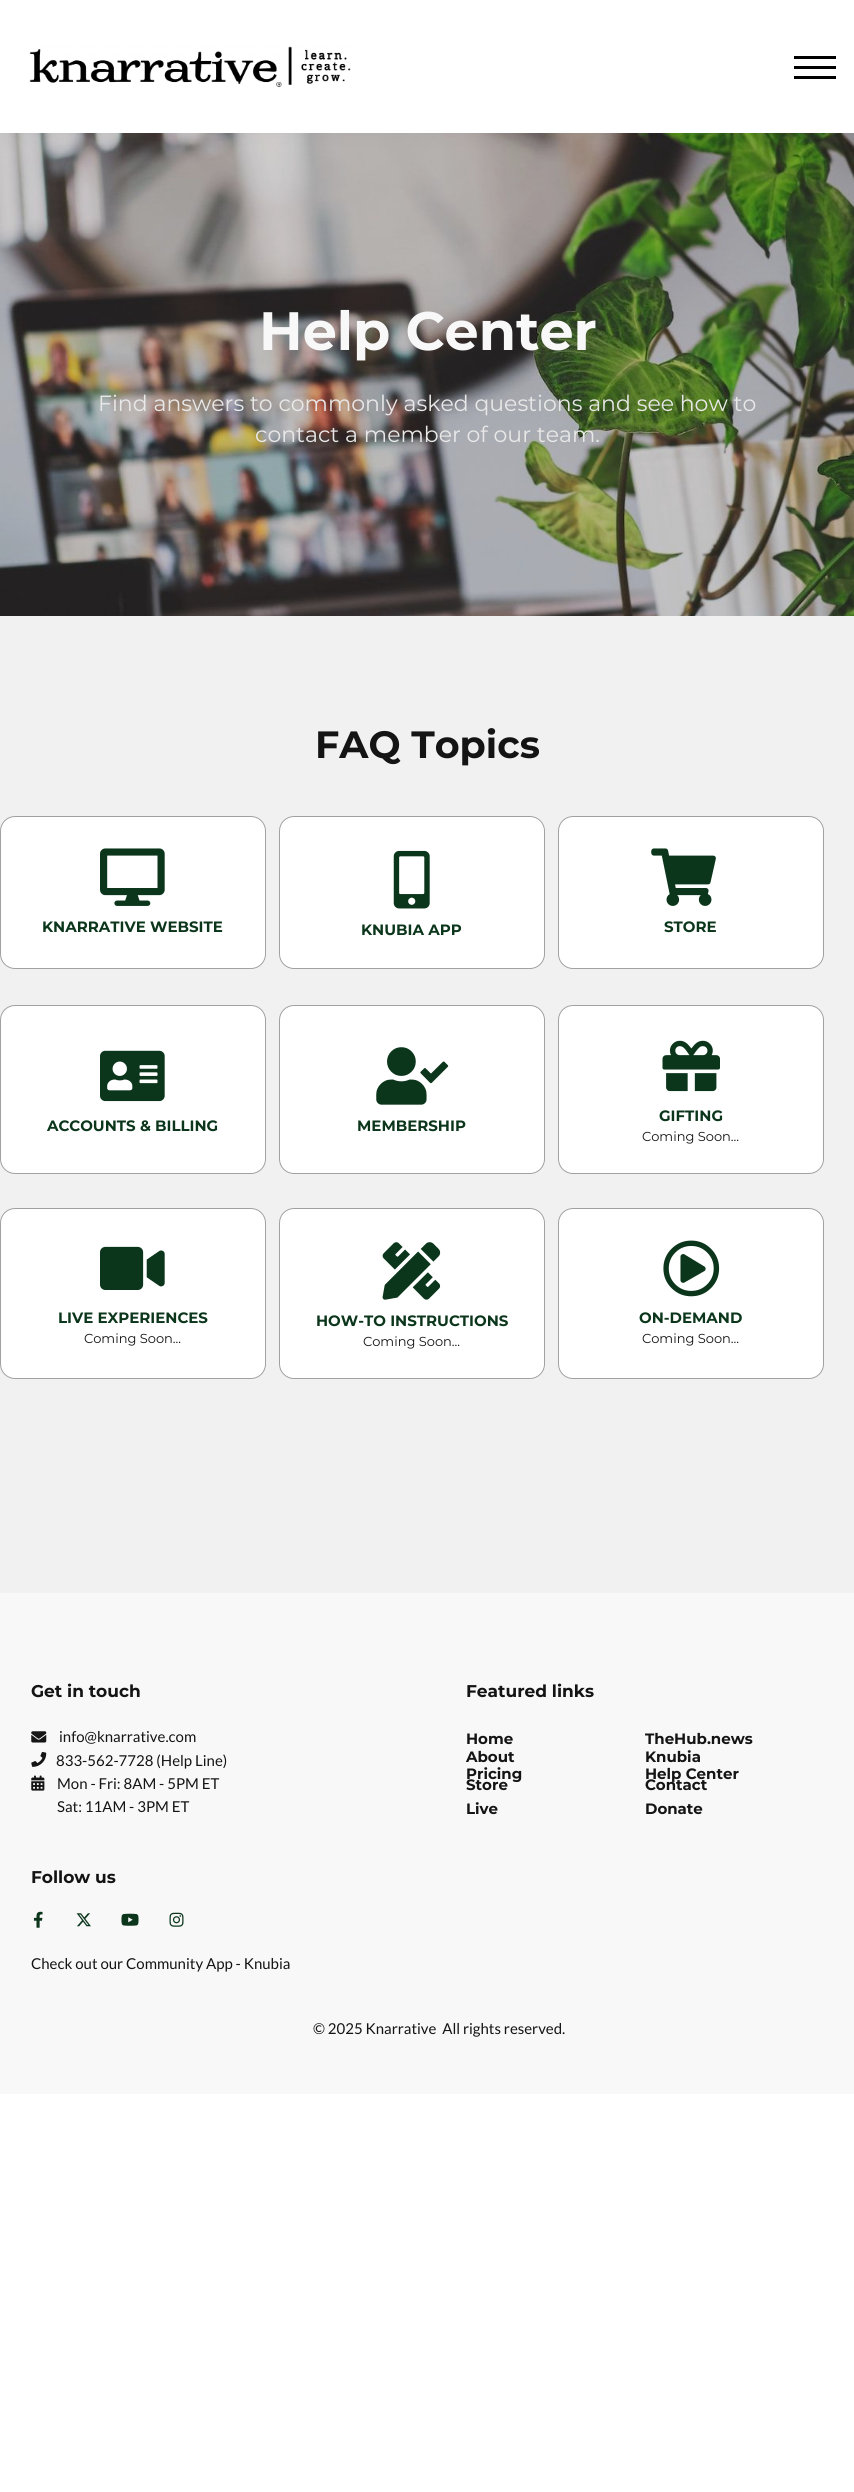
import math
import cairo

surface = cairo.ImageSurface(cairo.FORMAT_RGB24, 854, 2492)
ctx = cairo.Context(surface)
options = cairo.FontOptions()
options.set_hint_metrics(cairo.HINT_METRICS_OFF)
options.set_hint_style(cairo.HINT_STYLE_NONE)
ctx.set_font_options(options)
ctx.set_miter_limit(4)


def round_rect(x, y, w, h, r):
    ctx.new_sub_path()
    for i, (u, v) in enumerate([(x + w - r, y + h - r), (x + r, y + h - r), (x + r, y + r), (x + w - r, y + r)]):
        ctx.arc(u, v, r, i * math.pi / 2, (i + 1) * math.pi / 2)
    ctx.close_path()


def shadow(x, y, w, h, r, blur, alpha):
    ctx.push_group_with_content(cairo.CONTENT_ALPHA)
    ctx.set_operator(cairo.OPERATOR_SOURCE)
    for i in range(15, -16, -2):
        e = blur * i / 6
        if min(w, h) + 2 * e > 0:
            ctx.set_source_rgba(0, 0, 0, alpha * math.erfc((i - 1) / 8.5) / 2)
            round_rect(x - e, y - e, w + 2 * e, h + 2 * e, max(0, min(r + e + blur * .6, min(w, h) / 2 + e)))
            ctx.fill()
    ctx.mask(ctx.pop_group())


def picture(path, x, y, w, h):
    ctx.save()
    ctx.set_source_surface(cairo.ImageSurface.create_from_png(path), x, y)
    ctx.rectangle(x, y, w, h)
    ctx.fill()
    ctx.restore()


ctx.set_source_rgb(1, 1, 1)
ctx.paint()
picture("img2.png", 0, 133, 854, 483)
ctx.set_source_rgb(0, 0, 0)
shadow(0, 0, 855, 133, 0, 9.5, 0.05)
ctx.set_source_rgb(1, 1, 1)
ctx.rectangle(0, 0, 854, 133)
ctx.fill()
picture("img1.png", 29, 46, 322, 42)
ctx.set_source_rgb(0, 0, 0)
ctx.rectangle(794, 76, 42, 3)
ctx.fill()
ctx.rectangle(794, 56, 42, 3)
ctx.fill()
ctx.rectangle(794, 66, 42, 3)
ctx.fill()
ctx.select_font_face("Montserrat", cairo.FONT_SLANT_NORMAL, cairo.FONT_WEIGHT_BOLD)
ctx.set_font_size(54)
ctx.set_source_rgb(0.969, 0.969, 0.976)
ctx.move_to(259, 350)
ctx.show_text("Help Center")
ctx.select_font_face("Montserrat")
ctx.set_font_size(22)
ctx.set_source_rgb(0.91, 0.91, 0.91)
ctx.move_to(98, 411)
ctx.show_text("Find answers to commonly asked questions and see how to")
ctx.move_to(255, 442)
ctx.show_text("contact a member of our team.")
ctx.set_source_rgb(0.945, 0.945, 0.945)
ctx.rectangle(0, 616, 854, 977)
ctx.fill()
ctx.select_font_face("Montserrat", cairo.FONT_SLANT_NORMAL, cairo.FONT_WEIGHT_BOLD)
ctx.set_font_size(38)
ctx.set_source_rgb(0.082, 0.082, 0.082)
ctx.move_to(315, 758)
ctx.show_text("FAQ Topics")
ctx.set_source_rgb(1, 1, 1)
round_rect(0, 816, 266, 153, 15)
ctx.fill()
round_rect(0.5, 816.5, 265, 152, 14.5)
ctx.set_source_rgba(0.082, 0.082, 0.082, 0.4)
ctx.set_line_width(1)
ctx.stroke()
picture("img3.png", 100, 848, 65, 58)
ctx.set_font_size(15)
ctx.set_source_rgb(0.043, 0.212, 0.106)
ctx.move_to(42, 932)
ctx.show_text("KNARRATIVE WEBSITE")
ctx.set_source_rgb(1, 1, 1)
round_rect(279, 816, 266, 153, 15)
ctx.fill()
round_rect(279.5, 816.5, 265, 152, 14.5)
ctx.set_source_rgba(0.082, 0.082, 0.082, 0.4)
ctx.stroke()
picture("img4.png", 393, 850, 37, 59)
ctx.set_source_rgb(0.043, 0.212, 0.106)
ctx.move_to(361, 935)
ctx.show_text("KNUBIA APP")
ctx.set_source_rgb(1, 1, 1)
round_rect(558, 816, 266, 153, 15)
ctx.fill()
round_rect(558.5, 816.5, 265, 152, 14.5)
ctx.set_source_rgba(0.082, 0.082, 0.082, 0.4)
ctx.stroke()
picture("img5.png", 651, 848, 65, 58)
ctx.set_source_rgb(0.043, 0.212, 0.106)
ctx.move_to(664, 932)
ctx.show_text("STORE")
ctx.set_source_rgb(1, 1, 1)
round_rect(0, 1005, 266, 169, 15)
ctx.fill()
round_rect(0.5, 1005.5, 265, 168, 14.5)
ctx.set_source_rgba(0.082, 0.082, 0.082, 0.4)
ctx.stroke()
picture("img6.png", 100, 1050, 65, 52)
ctx.set_source_rgb(0.043, 0.212, 0.106)
ctx.move_to(47, 1131)
ctx.show_text("ACCOUNTS & BILLING")
ctx.set_source_rgb(1, 1, 1)
round_rect(279, 1005, 266, 169, 15)
ctx.fill()
round_rect(279.5, 1005.5, 265, 168, 14.5)
ctx.set_source_rgba(0.082, 0.082, 0.082, 0.4)
ctx.stroke()
picture("img7.png", 376, 1047, 73, 58)
ctx.set_source_rgb(0.043, 0.212, 0.106)
ctx.move_to(357, 1131)
ctx.show_text("MEMBERSHIP")
ctx.set_source_rgb(1, 1, 1)
round_rect(558, 1005, 266, 169, 15)
ctx.fill()
round_rect(558.5, 1005.5, 265, 168, 14.5)
ctx.set_source_rgba(0.082, 0.082, 0.082, 0.4)
ctx.stroke()
picture("img8.png", 662, 1040, 58, 52)
ctx.set_source_rgb(0.043, 0.212, 0.106)
ctx.move_to(659, 1121)
ctx.show_text("GIFTING")
ctx.select_font_face("Montserrat")
ctx.set_font_size(13)
ctx.set_source_rgb(0.082, 0.082, 0.082)
ctx.move_to(642, 1141)
ctx.show_text("Coming Soon...")
ctx.set_source_rgb(1, 1, 1)
round_rect(0, 1208, 266, 171, 15)
ctx.fill()
round_rect(0.5, 1208.5, 265, 170, 14.5)
ctx.set_source_rgba(0.082, 0.082, 0.082, 0.4)
ctx.stroke()
picture("img9.png", 100, 1246, 65, 44)
ctx.select_font_face("Montserrat", cairo.FONT_SLANT_NORMAL, cairo.FONT_WEIGHT_BOLD)
ctx.set_font_size(15)
ctx.set_source_rgb(0.043, 0.212, 0.106)
ctx.move_to(58, 1323)
ctx.show_text("LIVE EXPERIENCES")
ctx.select_font_face("Montserrat")
ctx.set_font_size(13)
ctx.set_source_rgb(0.082, 0.082, 0.082)
ctx.move_to(84, 1343)
ctx.show_text("Coming Soon...")
ctx.set_source_rgb(1, 1, 1)
round_rect(279, 1208, 266, 171, 15)
ctx.fill()
round_rect(279.5, 1208.5, 265, 170, 14.5)
ctx.set_source_rgba(0.082, 0.082, 0.082, 0.4)
ctx.stroke()
picture("img10.png", 382, 1242, 59, 58)
ctx.select_font_face("Montserrat", cairo.FONT_SLANT_NORMAL, cairo.FONT_WEIGHT_BOLD)
ctx.set_font_size(15)
ctx.set_source_rgb(0.043, 0.212, 0.106)
ctx.move_to(316, 1326)
ctx.show_text("HOW-TO INSTRUCTIONS")
ctx.select_font_face("Montserrat")
ctx.set_font_size(13)
ctx.set_source_rgb(0.082, 0.082, 0.082)
ctx.move_to(363, 1346)
ctx.show_text("Coming Soon...")
ctx.set_source_rgb(1, 1, 1)
round_rect(558, 1208, 266, 171, 15)
ctx.fill()
round_rect(558.5, 1208.5, 265, 170, 14.5)
ctx.set_source_rgba(0.082, 0.082, 0.082, 0.4)
ctx.stroke()
picture("img11.png", 663, 1240, 57, 57)
ctx.select_font_face("Montserrat", cairo.FONT_SLANT_NORMAL, cairo.FONT_WEIGHT_BOLD)
ctx.set_font_size(15)
ctx.set_source_rgb(0.043, 0.212, 0.106)
ctx.move_to(639, 1323)
ctx.show_text("ON-DEMAND")
ctx.select_font_face("Montserrat")
ctx.set_font_size(13)
ctx.set_source_rgb(0.082, 0.082, 0.082)
ctx.move_to(642, 1343)
ctx.show_text("Coming Soon...")
ctx.set_source_rgb(0.969, 0.969, 0.976)
ctx.rectangle(0, 1593, 854, 501)
ctx.fill()
ctx.select_font_face("Montserrat", cairo.FONT_SLANT_NORMAL, cairo.FONT_WEIGHT_BOLD)
ctx.set_font_size(17)
ctx.set_source_rgb(0.082, 0.082, 0.082)
ctx.move_to(31, 1697)
ctx.show_text("Get in touch")
picture("img12.png", 31, 1731, 16, 12)
ctx.select_font_face("Lato")
ctx.set_font_size(15)
ctx.move_to(59, 1742)
ctx.show_text("info@knarrative.com")
picture("img13.png", 31, 1751, 16, 16)
ctx.move_to(56, 1766)
ctx.show_text("833-562-7728 (Help Line)")
picture("img14.png", 31, 1775, 14, 16)
ctx.move_to(57, 1789)
ctx.show_text("Mon - Fri: 8AM - 5PM ET")
ctx.move_to(57, 1812)
ctx.show_text("Sat: 11AM - 3PM ET")
ctx.select_font_face("Montserrat", cairo.FONT_SLANT_NORMAL, cairo.FONT_WEIGHT_BOLD)
ctx.set_font_size(17)
ctx.move_to(466, 1697)
ctx.show_text("Featured links")
ctx.set_font_size(15)
ctx.move_to(466, 1744)
ctx.show_text("Home")
ctx.move_to(645, 1744)
ctx.show_text("TheHub.news")
ctx.move_to(466, 1762)
ctx.show_text("About")
ctx.move_to(645, 1762)
ctx.show_text("Knubia")
ctx.move_to(466, 1779)
ctx.show_text("Pricing")
ctx.move_to(645, 1779)
ctx.show_text("Help Center")
ctx.move_to(466, 1790)
ctx.show_text("Store")
ctx.move_to(645, 1790)
ctx.show_text("Contact")
ctx.move_to(466, 1814)
ctx.show_text("Live")
ctx.move_to(645, 1814)
ctx.show_text("Donate")
ctx.set_font_size(17)
ctx.move_to(31, 1883)
ctx.show_text("Follow us")
picture("img15.png", 33, 1911, 10, 17)
picture("img16.png", 76, 1913, 15, 14)
picture("img17.png", 121, 1913, 18, 13)
picture("img18.png", 169, 1912, 15, 15)
ctx.select_font_face("Lato")
ctx.set_font_size(15)
ctx.move_to(31, 1969)
ctx.show_text("Check out our Community App - Knubia")
ctx.move_to(313, 2034)
ctx.show_text("© 2025 Knarrative  All rights reserved.")
surface.write_to_png("page.png")
